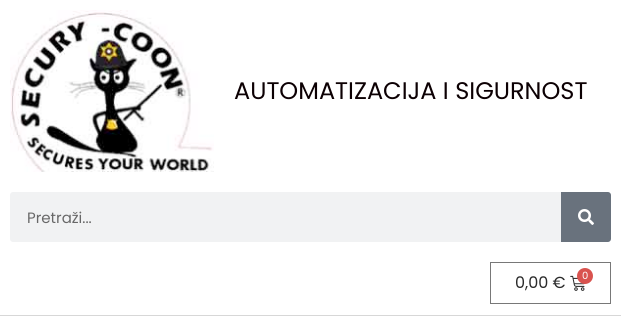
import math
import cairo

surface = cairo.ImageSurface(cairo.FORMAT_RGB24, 621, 323)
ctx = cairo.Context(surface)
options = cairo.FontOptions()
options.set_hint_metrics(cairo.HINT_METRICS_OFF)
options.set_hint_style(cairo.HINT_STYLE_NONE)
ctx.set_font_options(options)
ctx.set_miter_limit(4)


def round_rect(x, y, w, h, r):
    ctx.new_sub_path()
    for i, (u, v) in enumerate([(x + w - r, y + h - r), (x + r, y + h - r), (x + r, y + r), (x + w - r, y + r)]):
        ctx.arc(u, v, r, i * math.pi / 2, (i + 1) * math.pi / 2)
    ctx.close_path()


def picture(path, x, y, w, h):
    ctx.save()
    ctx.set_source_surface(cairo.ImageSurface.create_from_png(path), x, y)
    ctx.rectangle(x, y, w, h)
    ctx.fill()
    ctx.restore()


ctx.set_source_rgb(1, 1, 1)
ctx.paint()
ctx.set_source_rgb(0.843, 0.843, 0.843)
ctx.rectangle(0, 315, 621, 1)
ctx.fill()
picture("img1.png", 10, 10, 204, 162)
ctx.select_font_face("Poppins")
ctx.set_font_size(24)
ctx.set_source_rgb(0.047, 0, 0.012)
ctx.move_to(234, 99)
ctx.show_text("AUTOMATIZACIJA I SIGURNOST")
ctx.set_source_rgb(0.945, 0.949, 0.953)
round_rect(10, 192, 601, 50, 3)
ctx.fill()
ctx.set_font_size(15)
ctx.set_source_rgb(0.408, 0.408, 0.408)
ctx.move_to(27, 223)
ctx.show_text("Pretraži...")
ctx.set_source_rgb(0.412, 0.447, 0.49)
ctx.new_path()
ctx.move_to(561, 192)
ctx.line_to(608, 192)
ctx.curve_to(609.5, 192, 611, 193.5, 611, 195)
ctx.line_to(611, 239)
ctx.curve_to(611, 240.5, 609.5, 242, 608, 242)
ctx.line_to(561, 242)
ctx.close_path()
ctx.fill()
picture("img2.png", 578, 209, 16, 16)
ctx.rectangle(490.5, 262.5, 120, 41)
ctx.set_source_rgb(0.471, 0.471, 0.471)
ctx.set_line_width(1)
ctx.stroke()
picture("img3.png", 570, 275, 16, 16)
ctx.set_source_rgb(0.851, 0.325, 0.31)
ctx.arc(585, 276, 8, 0, 2 * math.pi)
ctx.fill()
ctx.set_font_size(10)
ctx.set_source_rgb(1, 1, 1)
ctx.move_to(582, 279)
ctx.show_text("0")
ctx.set_font_size(16)
ctx.set_source_rgb(0.165, 0.165, 0.165)
ctx.move_to(515, 288)
ctx.show_text("0,00 €")
surface.write_to_png("page.png")
